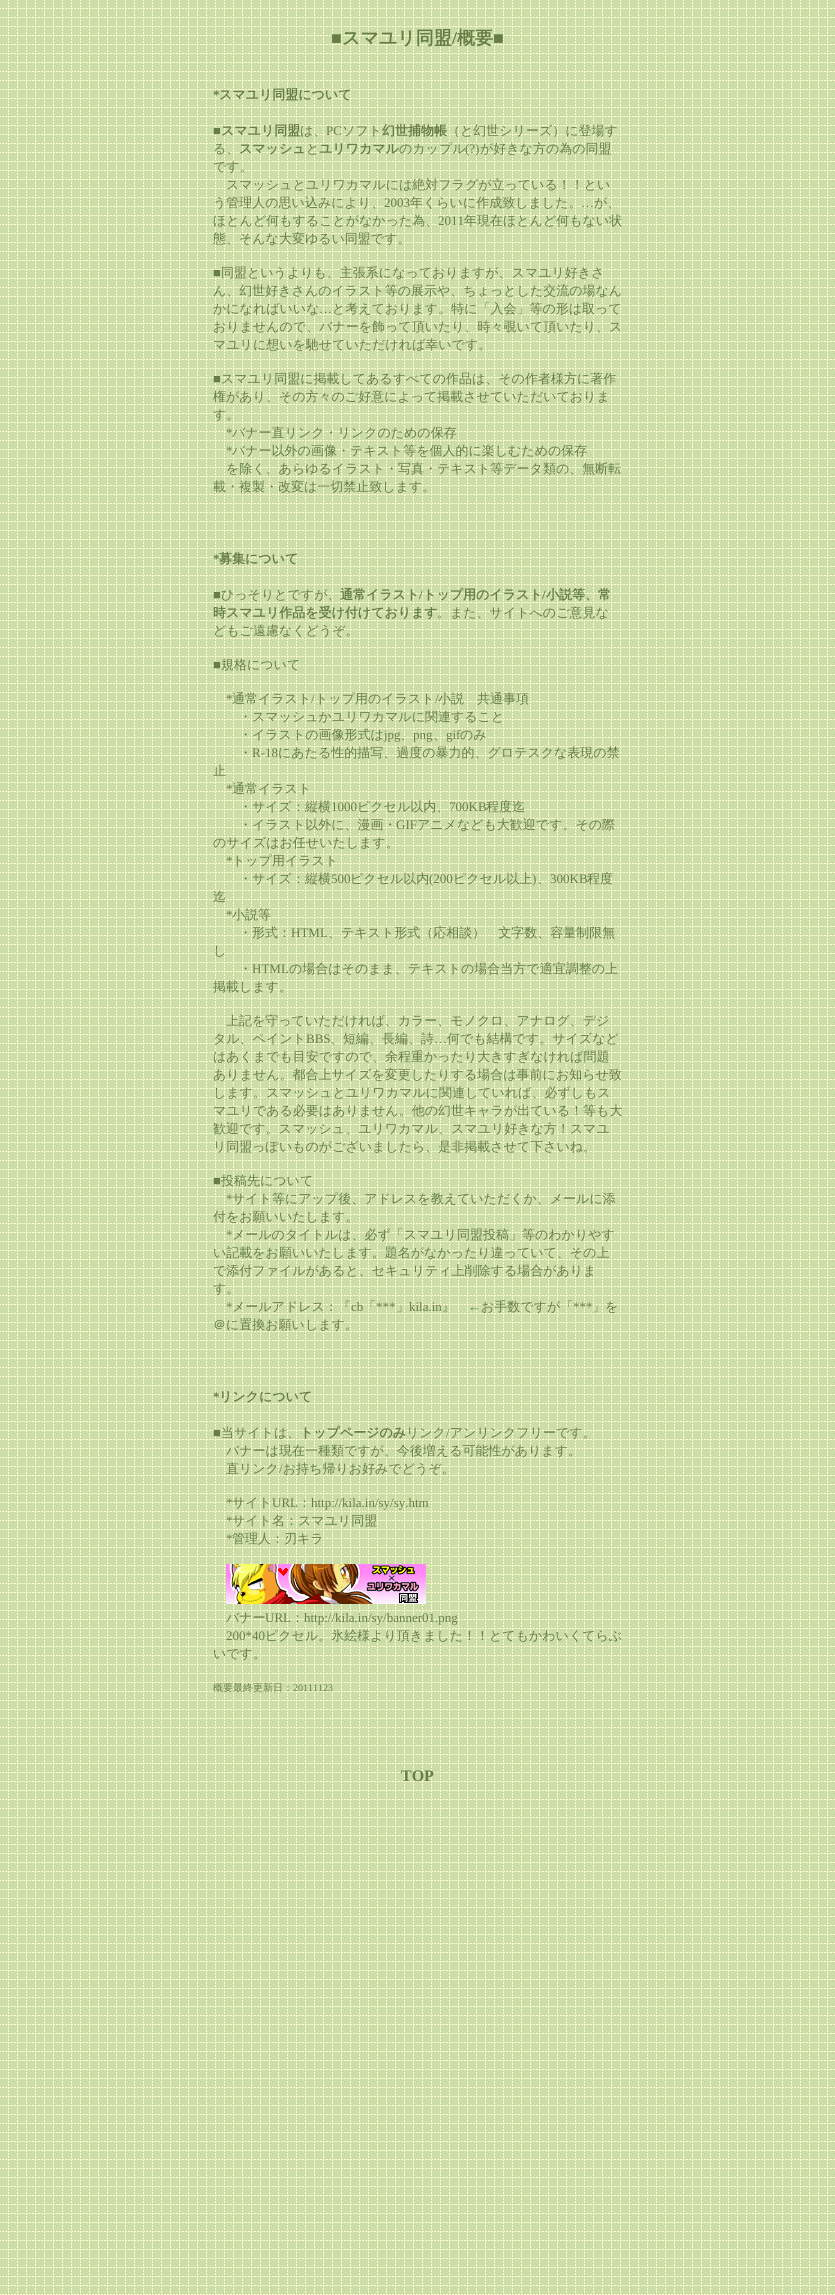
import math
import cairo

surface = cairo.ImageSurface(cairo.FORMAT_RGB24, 835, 2295)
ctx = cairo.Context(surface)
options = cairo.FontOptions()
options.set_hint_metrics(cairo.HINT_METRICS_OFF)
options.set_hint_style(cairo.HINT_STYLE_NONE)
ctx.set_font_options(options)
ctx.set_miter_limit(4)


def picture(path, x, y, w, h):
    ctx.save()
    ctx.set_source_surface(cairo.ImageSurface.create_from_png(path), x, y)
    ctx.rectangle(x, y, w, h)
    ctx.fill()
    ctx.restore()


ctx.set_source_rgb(1, 1, 1)
ctx.paint()
picture("img1.png", 0, 0, 835, 2295)
ctx.select_font_face("Liberation Serif", cairo.FONT_SLANT_NORMAL, cairo.FONT_WEIGHT_BOLD)
ctx.set_font_size(18)
ctx.set_source_rgb(0.4, 0.49, 0.275)
ctx.move_to(331, 44)
ctx.show_text("■")
ctx.select_font_face("WenQuanYi Zen Hei", cairo.FONT_SLANT_NORMAL, cairo.FONT_WEIGHT_BOLD)
ctx.move_to(342, 44)
ctx.show_text("スマユリ同盟")
ctx.select_font_face("Liberation Serif", cairo.FONT_SLANT_NORMAL, cairo.FONT_WEIGHT_BOLD)
ctx.move_to(452, 44)
ctx.show_text("/")
ctx.select_font_face("WenQuanYi Zen Hei", cairo.FONT_SLANT_NORMAL, cairo.FONT_WEIGHT_BOLD)
ctx.move_to(457, 44)
ctx.show_text("概要")
ctx.select_font_face("Liberation Serif", cairo.FONT_SLANT_NORMAL, cairo.FONT_WEIGHT_BOLD)
ctx.move_to(493, 44)
ctx.show_text("■")
ctx.set_font_size(13)
ctx.move_to(213, 99)
ctx.show_text("*")
ctx.select_font_face("WenQuanYi Zen Hei", cairo.FONT_SLANT_NORMAL, cairo.FONT_WEIGHT_BOLD)
ctx.move_to(219, 99)
ctx.show_text("スマユリ同盟について")
ctx.select_font_face("Liberation Serif")
ctx.move_to(213, 135)
ctx.show_text("■")
ctx.select_font_face("WenQuanYi Zen Hei", cairo.FONT_SLANT_NORMAL, cairo.FONT_WEIGHT_BOLD)
ctx.move_to(221, 135)
ctx.show_text("スマユリ同盟")
ctx.select_font_face("WenQuanYi Zen Hei Medium")
ctx.move_to(300, 135)
ctx.show_text("は、")
ctx.select_font_face("Liberation Serif")
ctx.move_to(326, 135)
ctx.show_text("PC")
ctx.select_font_face("WenQuanYi Zen Hei Medium")
ctx.move_to(342, 135)
ctx.show_text("ソフト")
ctx.select_font_face("WenQuanYi Zen Hei", cairo.FONT_SLANT_NORMAL, cairo.FONT_WEIGHT_BOLD)
ctx.move_to(382, 135)
ctx.show_text("幻世捕物帳")
ctx.select_font_face("WenQuanYi Zen Hei Medium")
ctx.move_to(447, 135)
ctx.show_text("（と幻世シリーズ）に登場す")
ctx.move_to(213, 153)
ctx.show_text("る、")
ctx.select_font_face("WenQuanYi Zen Hei", cairo.FONT_SLANT_NORMAL, cairo.FONT_WEIGHT_BOLD)
ctx.move_to(239, 153)
ctx.show_text("スマッシュ")
ctx.select_font_face("WenQuanYi Zen Hei Medium")
ctx.move_to(306, 153)
ctx.show_text("と")
ctx.select_font_face("WenQuanYi Zen Hei", cairo.FONT_SLANT_NORMAL, cairo.FONT_WEIGHT_BOLD)
ctx.move_to(319, 153)
ctx.show_text("ユリワカマル")
ctx.select_font_face("WenQuanYi Zen Hei Medium")
ctx.move_to(399, 153)
ctx.show_text("のカップル")
ctx.select_font_face("Liberation Serif")
ctx.move_to(465, 153)
ctx.show_text("(?)")
ctx.select_font_face("WenQuanYi Zen Hei Medium")
ctx.move_to(480, 153)
ctx.show_text("が好きな方の為の同盟")
ctx.move_to(213, 171)
ctx.show_text("です。")
ctx.move_to(226, 189)
ctx.show_text("スマッシュとユリワカマルには絶対フラグが立っている！！とい")
ctx.move_to(213, 207)
ctx.show_text("う管理人の思い込みにより、")
ctx.select_font_face("Liberation Serif")
ctx.move_to(384, 207)
ctx.show_text("2003")
ctx.select_font_face("WenQuanYi Zen Hei Medium")
ctx.move_to(410, 207)
ctx.show_text("年くらいに作成致しました。")
ctx.select_font_face("Liberation Serif")
ctx.move_to(581, 207)
ctx.show_text("…")
ctx.select_font_face("WenQuanYi Zen Hei Medium")
ctx.move_to(594, 207)
ctx.show_text("が、")
ctx.move_to(213, 225)
ctx.show_text("ほとんど何もすることがなかった為、")
ctx.select_font_face("Liberation Serif")
ctx.move_to(438, 225)
ctx.show_text("2011")
ctx.select_font_face("WenQuanYi Zen Hei Medium")
ctx.move_to(464, 225)
ctx.show_text("年現在ほとんど何もない状")
ctx.move_to(213, 243)
ctx.show_text("態、そんな大変ゆるい同盟です。")
ctx.select_font_face("Liberation Serif")
ctx.move_to(213, 277)
ctx.show_text("■")
ctx.select_font_face("WenQuanYi Zen Hei Medium")
ctx.move_to(221, 277)
ctx.show_text("同盟というよりも、主張系になっておりますが、スマユリ好きさ")
ctx.move_to(213, 295)
ctx.show_text("ん、幻世好きさんのイラスト等の展示や、ちょっとした交流の場なん")
ctx.move_to(213, 313)
ctx.show_text("かになればいいな")
ctx.select_font_face("Liberation Serif")
ctx.move_to(319, 313)
ctx.show_text("…")
ctx.select_font_face("WenQuanYi Zen Hei Medium")
ctx.move_to(332, 313)
ctx.show_text("と考えております。特に「入会」等の形は取って")
ctx.move_to(213, 331)
ctx.show_text("おりませんので、バナーを飾って頂いたり、時々覗いて頂いたり、ス")
ctx.move_to(213, 349)
ctx.show_text("マユリに想いを馳せていただければ幸いです。")
ctx.select_font_face("Liberation Serif")
ctx.move_to(213, 383)
ctx.show_text("■")
ctx.select_font_face("WenQuanYi Zen Hei Medium")
ctx.move_to(221, 383)
ctx.show_text("スマユリ同盟に掲載してあるすべての作品は、その作者様方に著作")
ctx.move_to(213, 401)
ctx.show_text("権があり、その方々のご好意によって掲載させていただいておりま")
ctx.move_to(213, 419)
ctx.show_text("す。")
ctx.select_font_face("Liberation Serif")
ctx.move_to(226, 437)
ctx.show_text("*")
ctx.select_font_face("WenQuanYi Zen Hei Medium")
ctx.move_to(232, 437)
ctx.show_text("バナー直リンク・リンクのための保存")
ctx.select_font_face("Liberation Serif")
ctx.move_to(226, 455)
ctx.show_text("*")
ctx.select_font_face("WenQuanYi Zen Hei Medium")
ctx.move_to(232, 455)
ctx.show_text("バナー以外の画像・テキスト等を個人的に楽しむための保存")
ctx.move_to(226, 473)
ctx.show_text("を除く、あらゆるイラスト・写真・テキスト等データ類の、無断転")
ctx.move_to(213, 491)
ctx.show_text("載・複製・改変は一切禁止致します。")
ctx.select_font_face("Liberation Serif", cairo.FONT_SLANT_NORMAL, cairo.FONT_WEIGHT_BOLD)
ctx.move_to(213, 563)
ctx.show_text("*")
ctx.select_font_face("WenQuanYi Zen Hei", cairo.FONT_SLANT_NORMAL, cairo.FONT_WEIGHT_BOLD)
ctx.move_to(219, 563)
ctx.show_text("募集について")
ctx.select_font_face("WenQuanYi Zen Hei Medium")
ctx.move_to(221, 599)
ctx.show_text("ひっそりとですが、")
ctx.select_font_face("WenQuanYi Zen Hei", cairo.FONT_SLANT_NORMAL, cairo.FONT_WEIGHT_BOLD)
ctx.move_to(340, 599)
ctx.show_text("通常イラスト トップ用のイラスト")
ctx.select_font_face("Liberation Serif", cairo.FONT_SLANT_NORMAL, cairo.FONT_WEIGHT_BOLD)
ctx.move_to(542, 599)
ctx.show_text("/")
ctx.select_font_face("WenQuanYi Zen Hei", cairo.FONT_SLANT_NORMAL, cairo.FONT_WEIGHT_BOLD)
ctx.move_to(546, 599)
ctx.show_text("小説等、常")
ctx.select_font_face("Liberation Serif")
ctx.move_to(213, 599)
ctx.show_text("■")
ctx.select_font_face("Liberation Serif", cairo.FONT_SLANT_NORMAL, cairo.FONT_WEIGHT_BOLD)
ctx.move_to(419, 599)
ctx.show_text("/")
ctx.select_font_face("WenQuanYi Zen Hei", cairo.FONT_SLANT_NORMAL, cairo.FONT_WEIGHT_BOLD)
ctx.move_to(213, 617)
ctx.show_text("時スマユリ作品を受け付けております")
ctx.select_font_face("WenQuanYi Zen Hei Medium")
ctx.move_to(437, 617)
ctx.show_text("。また、サイトへのご意見な")
ctx.move_to(213, 635)
ctx.show_text("どもご遠慮なくどうぞ。")
ctx.select_font_face("Liberation Serif")
ctx.move_to(213, 669)
ctx.show_text("■")
ctx.select_font_face("WenQuanYi Zen Hei Medium")
ctx.move_to(221, 669)
ctx.show_text("規格について")
ctx.select_font_face("Liberation Serif")
ctx.move_to(226, 703)
ctx.show_text("*")
ctx.select_font_face("WenQuanYi Zen Hei Medium")
ctx.move_to(232, 703)
ctx.show_text("通常イラスト トップ用のイラスト")
ctx.select_font_face("Liberation Serif")
ctx.move_to(435, 703)
ctx.show_text("/")
ctx.select_font_face("WenQuanYi Zen Hei Medium")
ctx.move_to(438, 703)
ctx.show_text("小説　共通事項")
ctx.select_font_face("Liberation Serif")
ctx.move_to(311, 703)
ctx.show_text("/")
ctx.select_font_face("WenQuanYi Zen Hei Medium")
ctx.move_to(239, 721)
ctx.show_text("・スマッシュかユリワカマルに関連すること")
ctx.move_to(239, 739)
ctx.show_text("・イラストの画像形式は")
ctx.select_font_face("Liberation Serif")
ctx.move_to(384, 739)
ctx.show_text("jpg")
ctx.select_font_face("WenQuanYi Zen Hei Medium")
ctx.move_to(400, 739)
ctx.show_text("、")
ctx.select_font_face("Liberation Serif")
ctx.move_to(413, 739)
ctx.show_text("png")
ctx.select_font_face("WenQuanYi Zen Hei Medium")
ctx.move_to(433, 739)
ctx.show_text("、")
ctx.select_font_face("Liberation Serif")
ctx.move_to(446, 739)
ctx.show_text("gif")
ctx.select_font_face("WenQuanYi Zen Hei Medium")
ctx.move_to(460, 739)
ctx.show_text("のみ")
ctx.move_to(239, 757)
ctx.show_text("・")
ctx.select_font_face("Liberation Serif")
ctx.move_to(252, 757)
ctx.show_text("R-18")
ctx.select_font_face("WenQuanYi Zen Hei Medium")
ctx.move_to(278, 757)
ctx.show_text("にあたる性的描写、過度の暴力的、グロテスクな表現の禁")
ctx.move_to(213, 775)
ctx.show_text("止")
ctx.select_font_face("Liberation Serif")
ctx.move_to(226, 793)
ctx.show_text("*")
ctx.select_font_face("WenQuanYi Zen Hei Medium")
ctx.move_to(232, 793)
ctx.show_text("通常イラスト")
ctx.move_to(239, 811)
ctx.show_text("・サイズ：縦横")
ctx.select_font_face("Liberation Serif")
ctx.move_to(331, 811)
ctx.show_text("1000")
ctx.select_font_face("WenQuanYi Zen Hei Medium")
ctx.move_to(357, 811)
ctx.show_text("ピクセル以内、")
ctx.select_font_face("Liberation Serif")
ctx.move_to(449, 811)
ctx.show_text("700KB")
ctx.select_font_face("WenQuanYi Zen Hei Medium")
ctx.move_to(486, 811)
ctx.show_text("程度迄")
ctx.move_to(239, 829)
ctx.show_text("・イラスト以外に、漫画・")
ctx.select_font_face("Liberation Serif")
ctx.move_to(396, 829)
ctx.show_text("GIF")
ctx.select_font_face("WenQuanYi Zen Hei Medium")
ctx.move_to(417, 829)
ctx.show_text("アニメなども大歓迎です。その際")
ctx.move_to(213, 847)
ctx.show_text("のサイズはお任せいたします。")
ctx.select_font_face("Liberation Serif")
ctx.move_to(226, 865)
ctx.show_text("*")
ctx.select_font_face("WenQuanYi Zen Hei Medium")
ctx.move_to(232, 865)
ctx.show_text("トップ用イラスト")
ctx.move_to(239, 883)
ctx.show_text("・サイズ：縦横")
ctx.select_font_face("Liberation Serif")
ctx.move_to(331, 883)
ctx.show_text("500")
ctx.select_font_face("WenQuanYi Zen Hei Medium")
ctx.move_to(350, 883)
ctx.show_text("ピクセル以内")
ctx.select_font_face("Liberation Serif")
ctx.move_to(429, 883)
ctx.show_text("(200")
ctx.select_font_face("WenQuanYi Zen Hei Medium")
ctx.move_to(453, 883)
ctx.show_text("ピクセル以上")
ctx.select_font_face("Liberation Serif")
ctx.move_to(532, 883)
ctx.show_text(")")
ctx.select_font_face("WenQuanYi Zen Hei Medium")
ctx.move_to(537, 883)
ctx.show_text("、")
ctx.select_font_face("Liberation Serif")
ctx.move_to(550, 883)
ctx.show_text("300KB")
ctx.select_font_face("WenQuanYi Zen Hei Medium")
ctx.move_to(587, 883)
ctx.show_text("程度")
ctx.move_to(213, 901)
ctx.show_text("迄")
ctx.select_font_face("Liberation Serif")
ctx.move_to(226, 919)
ctx.show_text("*")
ctx.select_font_face("WenQuanYi Zen Hei Medium")
ctx.move_to(232, 919)
ctx.show_text("小説等")
ctx.move_to(239, 937)
ctx.show_text("・形式：")
ctx.select_font_face("Liberation Serif")
ctx.move_to(291, 937)
ctx.show_text("HTML")
ctx.select_font_face("WenQuanYi Zen Hei Medium")
ctx.move_to(328, 937)
ctx.show_text("、テキスト形式（応相談）　文字数、容量制限無")
ctx.move_to(213, 955)
ctx.show_text("し")
ctx.move_to(239, 973)
ctx.show_text("・")
ctx.select_font_face("Liberation Serif")
ctx.move_to(252, 973)
ctx.show_text("HTML")
ctx.select_font_face("WenQuanYi Zen Hei Medium")
ctx.move_to(289, 973)
ctx.show_text("の場合はそのまま、テキストの場合当方で適宜調整の上")
ctx.move_to(213, 991)
ctx.show_text("掲載します。")
ctx.move_to(226, 1025)
ctx.show_text("上記を守っていただければ、カラー、モノクロ、アナログ、デジ")
ctx.move_to(213, 1043)
ctx.show_text("タル、ペイント")
ctx.select_font_face("Liberation Serif")
ctx.move_to(306, 1043)
ctx.show_text("BBS")
ctx.select_font_face("WenQuanYi Zen Hei Medium")
ctx.move_to(330, 1043)
ctx.show_text("、短編、長編、詩")
ctx.select_font_face("Liberation Serif")
ctx.move_to(434, 1043)
ctx.show_text("…")
ctx.select_font_face("WenQuanYi Zen Hei Medium")
ctx.move_to(447, 1043)
ctx.show_text("何でも結構です。サイズなど")
ctx.move_to(213, 1061)
ctx.show_text("はあくまでも目安ですので、余程重かったり大きすぎなければ問題")
ctx.move_to(213, 1079)
ctx.show_text("ありません。都合上サイズを変更したりする場合は事前にお知らせ致")
ctx.move_to(213, 1097)
ctx.show_text("します。スマッシュとユリワカマルに関連していれば、必ずしもス")
ctx.move_to(213, 1115)
ctx.show_text("マユリである必要はありません。他の幻世キャラが出ている！等も大")
ctx.move_to(213, 1133)
ctx.show_text("歓迎です。スマッシュ、ユリワカマル、スマユリ好きな方！スマユ")
ctx.move_to(213, 1151)
ctx.show_text("リ同盟っぽいものがございましたら、是非掲載させて下さいね。")
ctx.select_font_face("Liberation Serif")
ctx.move_to(213, 1185)
ctx.show_text("■")
ctx.select_font_face("WenQuanYi Zen Hei Medium")
ctx.move_to(221, 1185)
ctx.show_text("投稿先について")
ctx.select_font_face("Liberation Serif")
ctx.move_to(226, 1203)
ctx.show_text("*")
ctx.select_font_face("WenQuanYi Zen Hei Medium")
ctx.move_to(232, 1203)
ctx.show_text("サイト等にアップ後、アドレスを教えていただくか、メールに添")
ctx.move_to(213, 1221)
ctx.show_text("付をお願いいたします。")
ctx.select_font_face("Liberation Serif")
ctx.move_to(226, 1239)
ctx.show_text("*")
ctx.select_font_face("WenQuanYi Zen Hei Medium")
ctx.move_to(232, 1239)
ctx.show_text("メールのタイトルは、必ず「スマユリ同盟投稿」等のわかりやす")
ctx.move_to(213, 1257)
ctx.show_text("い記載をお願いいたします。題名がなかったり違っていて、その上")
ctx.move_to(213, 1275)
ctx.show_text("で添付ファイルがあると、セキュリティ上削除する場合がありま")
ctx.move_to(213, 1293)
ctx.show_text("す。")
ctx.select_font_face("Liberation Serif")
ctx.move_to(226, 1311)
ctx.show_text("*")
ctx.select_font_face("WenQuanYi Zen Hei Medium")
ctx.move_to(232, 1311)
ctx.show_text("メールアドレス：『")
ctx.select_font_face("Liberation Serif")
ctx.move_to(351, 1311)
ctx.show_text("cb")
ctx.select_font_face("WenQuanYi Zen Hei Medium")
ctx.move_to(363, 1311)
ctx.show_text("「")
ctx.select_font_face("Liberation Serif")
ctx.move_to(376, 1311)
ctx.show_text("***")
ctx.select_font_face("WenQuanYi Zen Hei Medium")
ctx.move_to(396, 1311)
ctx.show_text("」")
ctx.select_font_face("Liberation Serif")
ctx.move_to(409, 1311)
ctx.show_text("kila.in")
ctx.select_font_face("WenQuanYi Zen Hei Medium")
ctx.move_to(442, 1311)
ctx.show_text("』")
ctx.select_font_face("Liberation Serif")
ctx.move_to(468, 1311)
ctx.show_text("←")
ctx.select_font_face("WenQuanYi Zen Hei Medium")
ctx.move_to(481, 1311)
ctx.show_text("お手数ですが「")
ctx.select_font_face("Liberation Serif")
ctx.move_to(573, 1311)
ctx.show_text("***")
ctx.select_font_face("WenQuanYi Zen Hei Medium")
ctx.move_to(592, 1311)
ctx.show_text("」を")
ctx.move_to(213, 1329)
ctx.show_text("＠に置換お願いします。")
ctx.select_font_face("Liberation Serif", cairo.FONT_SLANT_NORMAL, cairo.FONT_WEIGHT_BOLD)
ctx.move_to(213, 1401)
ctx.show_text("*")
ctx.select_font_face("WenQuanYi Zen Hei", cairo.FONT_SLANT_NORMAL, cairo.FONT_WEIGHT_BOLD)
ctx.move_to(219, 1401)
ctx.show_text("リンクについて")
ctx.select_font_face("WenQuanYi Zen Hei Medium")
ctx.move_to(221, 1437)
ctx.show_text("当サイトは、")
ctx.select_font_face("WenQuanYi Zen Hei", cairo.FONT_SLANT_NORMAL, cairo.FONT_WEIGHT_BOLD)
ctx.move_to(300, 1437)
ctx.show_text("トップページのみ")
ctx.select_font_face("WenQuanYi Zen Hei Medium")
ctx.move_to(406, 1437)
ctx.show_text("リンク アンリンクフリーです。")
ctx.select_font_face("Liberation Serif")
ctx.move_to(213, 1437)
ctx.show_text("■")
ctx.move_to(446, 1437)
ctx.show_text("/")
ctx.select_font_face("WenQuanYi Zen Hei Medium")
ctx.move_to(226, 1455)
ctx.show_text("バナーは現在一種類ですが、今後増える可能性があります。")
ctx.move_to(226, 1473)
ctx.show_text("直リンク お持ち帰りお好みでどうぞ。")
ctx.select_font_face("Liberation Serif")
ctx.move_to(279, 1473)
ctx.show_text("/")
ctx.move_to(226, 1507)
ctx.show_text("*")
ctx.select_font_face("WenQuanYi Zen Hei Medium")
ctx.move_to(232, 1507)
ctx.show_text("サイト")
ctx.select_font_face("Liberation Serif")
ctx.move_to(272, 1507)
ctx.show_text("URL")
ctx.select_font_face("WenQuanYi Zen Hei Medium")
ctx.move_to(298, 1507)
ctx.show_text("：")
ctx.select_font_face("Liberation Serif")
ctx.move_to(311, 1507)
ctx.show_text("http://kila.in/sy/sy.htm")
ctx.move_to(226, 1525)
ctx.show_text("*")
ctx.select_font_face("WenQuanYi Zen Hei Medium")
ctx.move_to(232, 1525)
ctx.show_text("サイト名：スマユリ同盟")
ctx.select_font_face("Liberation Serif")
ctx.move_to(226, 1543)
ctx.show_text("*")
ctx.select_font_face("WenQuanYi Zen Hei Medium")
ctx.move_to(232, 1543)
ctx.show_text("管理人：刃キラ")
picture("img2.png", 226, 1564, 200, 40)
ctx.move_to(226, 1622)
ctx.show_text("バナー")
ctx.select_font_face("Liberation Serif")
ctx.move_to(265, 1622)
ctx.show_text("URL")
ctx.select_font_face("WenQuanYi Zen Hei Medium")
ctx.move_to(291, 1622)
ctx.show_text("：")
ctx.select_font_face("Liberation Serif")
ctx.move_to(304, 1622)
ctx.show_text("http://kila.in/sy/banner01.png")
ctx.move_to(226, 1640)
ctx.show_text("200*40")
ctx.select_font_face("WenQuanYi Zen Hei Medium")
ctx.move_to(265, 1640)
ctx.show_text("ピクセル。氷絵様より頂きました！！とてもかわいくてらぶ")
ctx.move_to(213, 1658)
ctx.show_text("いです。")
ctx.set_font_size(10)
ctx.move_to(213, 1691)
ctx.show_text("概要最終更新日：")
ctx.select_font_face("Liberation Serif")
ctx.move_to(293, 1691)
ctx.show_text("20111123")
ctx.select_font_face("Liberation Serif", cairo.FONT_SLANT_NORMAL, cairo.FONT_WEIGHT_BOLD)
ctx.set_font_size(16)
ctx.move_to(401, 1781)
ctx.show_text("TOP")
surface.write_to_png("page.png")
